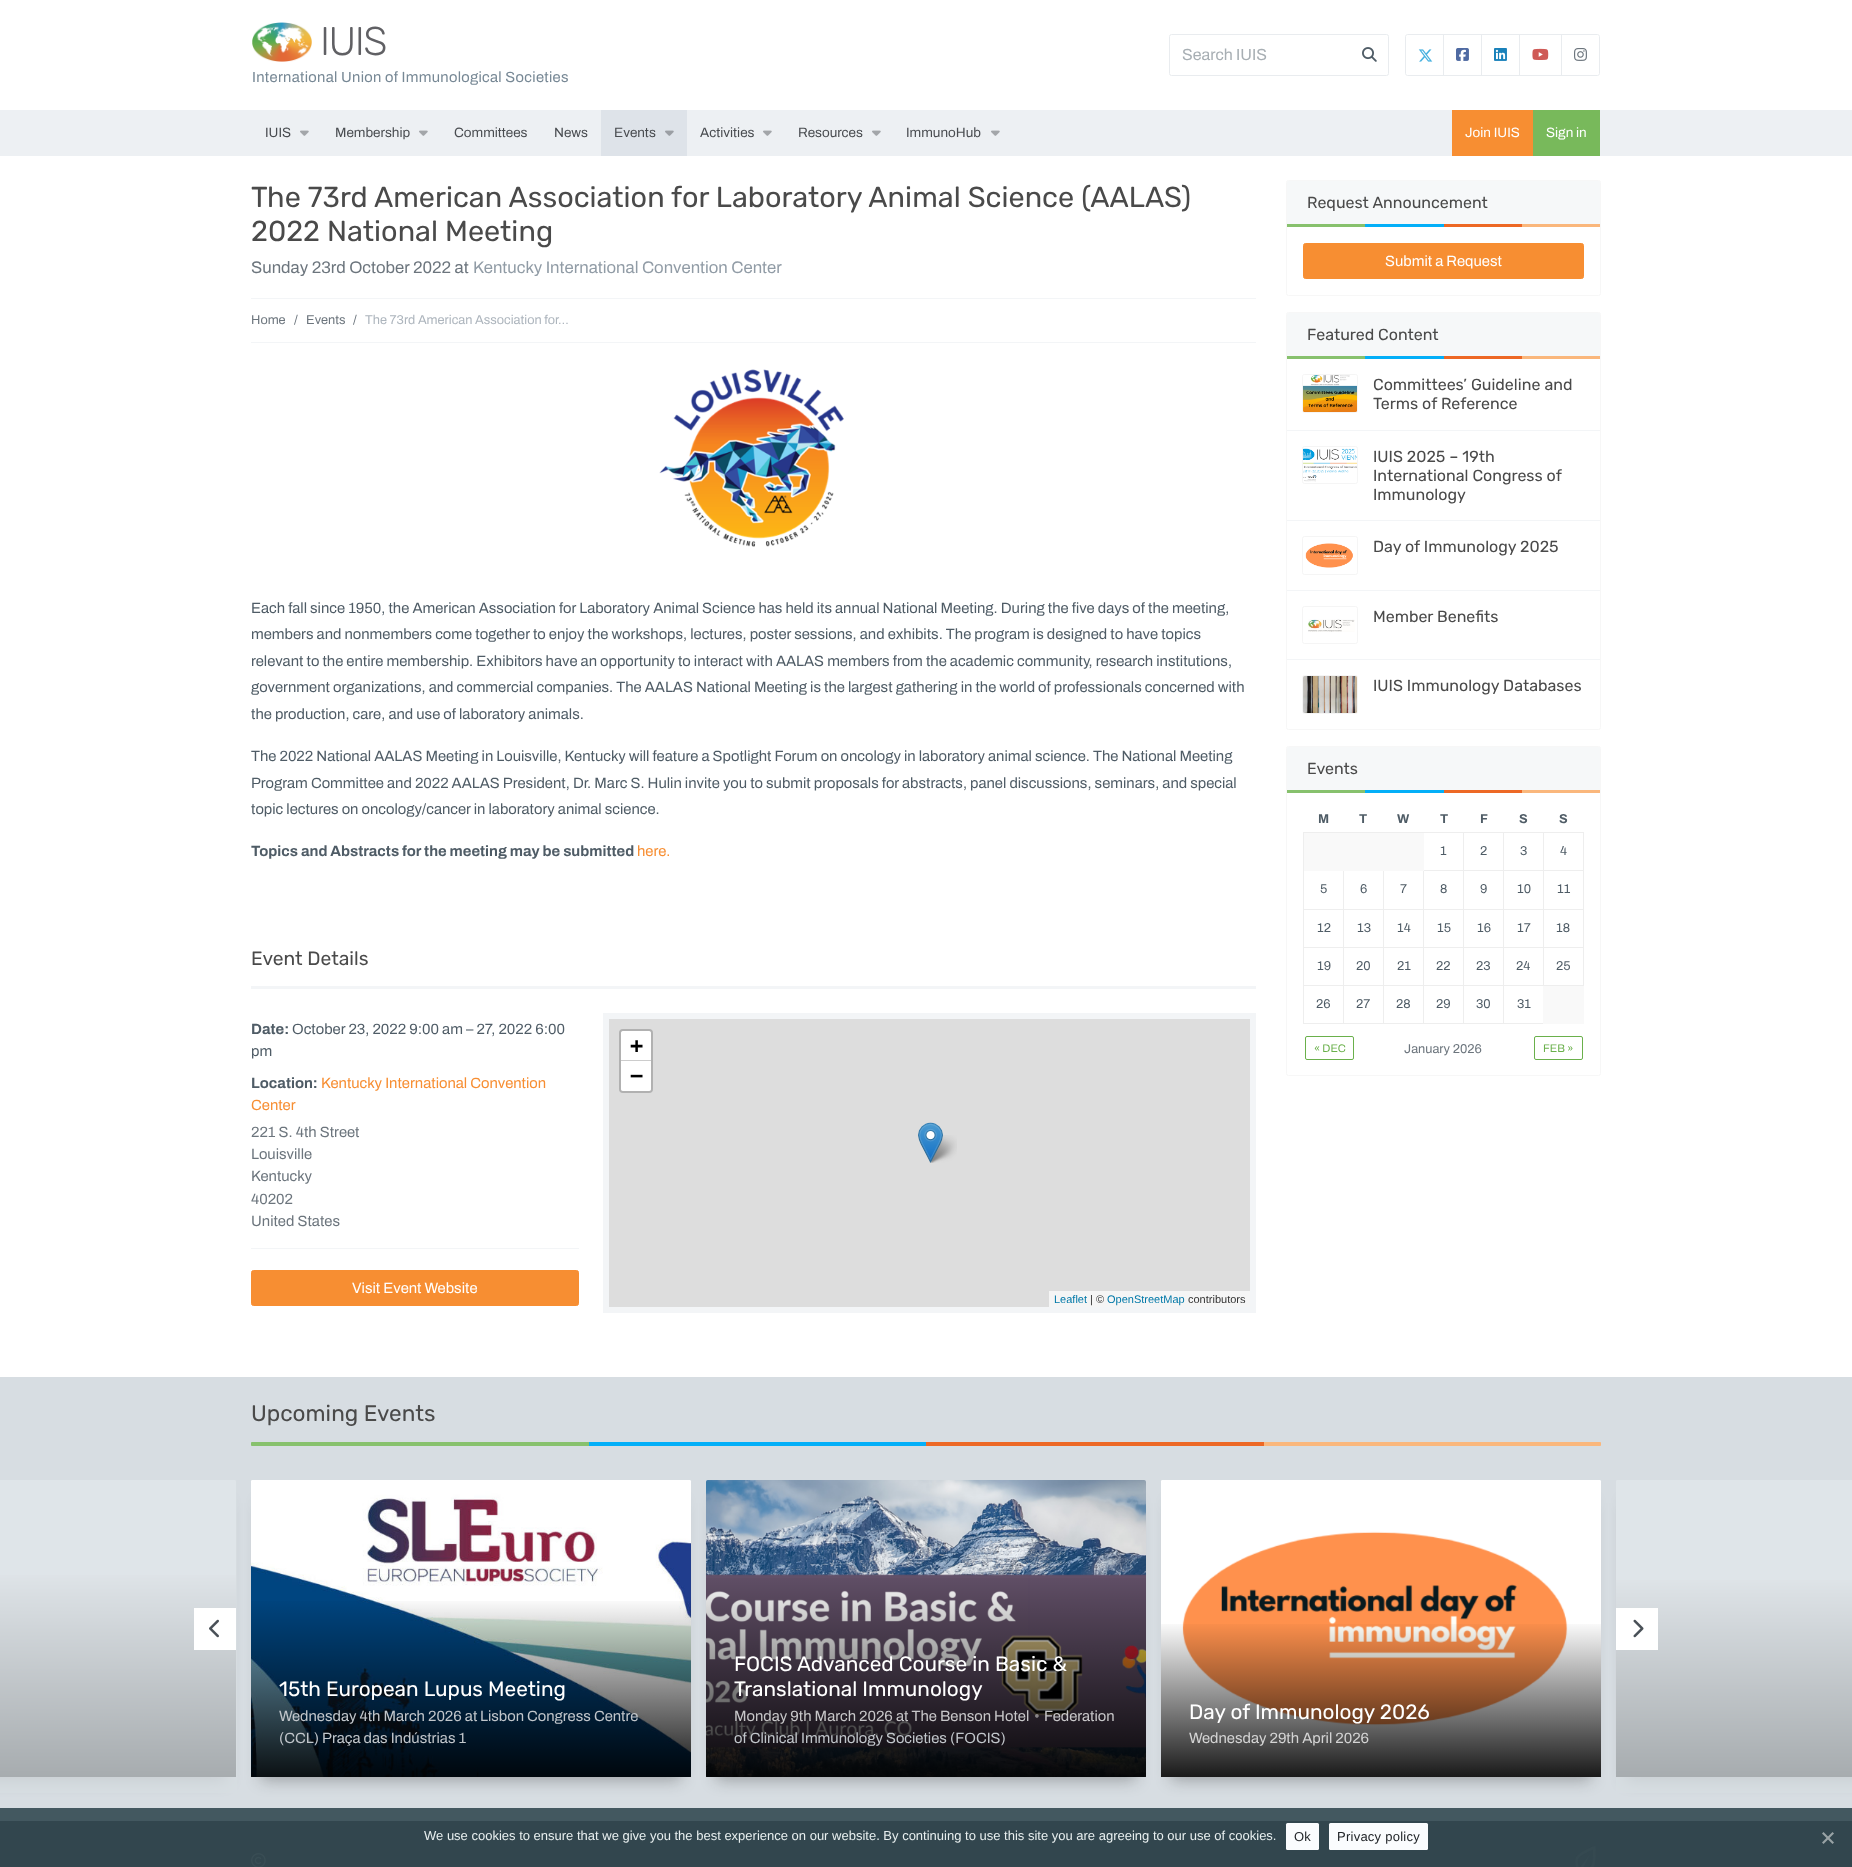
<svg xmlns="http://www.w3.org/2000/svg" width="1852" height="1867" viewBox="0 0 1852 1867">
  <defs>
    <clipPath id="clip1"><path d="M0 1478H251V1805H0ZM-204 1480H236V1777H-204Z" clip-rule="evenodd"/></clipPath>
    <linearGradient id="g1" gradientUnits="userSpaceOnUse" x1="16" y1="1570" x2="16" y2="1777"><stop offset="0" stop-color="rgb(0,0,0)" stop-opacity="0"/><stop offset="1" stop-color="rgb(0,0,0)" stop-opacity="0.9"/></linearGradient>
    <clipPath id="clip2"><path d="M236 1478H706V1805H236ZM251 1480H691V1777H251Z" clip-rule="evenodd"/></clipPath>
    <clipPath id="clip3"><path d="M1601 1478H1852V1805H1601ZM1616 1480H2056V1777H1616Z" clip-rule="evenodd"/></clipPath>
    <linearGradient id="g2" gradientUnits="userSpaceOnUse" x1="1836" y1="1575" x2="1836" y2="1777"><stop offset="0" stop-color="rgb(0,0,0)" stop-opacity="0"/><stop offset="1" stop-color="rgb(0,0,0)" stop-opacity="0.9"/></linearGradient>
    <linearGradient id="g3" gradientUnits="userSpaceOnUse" x1="471" y1="1597" x2="471" y2="1777"><stop offset="0" stop-color="rgb(0,0,0)" stop-opacity="0"/><stop offset="1" stop-color="rgb(0,0,0)" stop-opacity="0.9"/></linearGradient>
    <clipPath id="clip4"><path d="M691 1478H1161V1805H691ZM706 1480H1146V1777H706Z" clip-rule="evenodd"/></clipPath>
    <linearGradient id="g4" gradientUnits="userSpaceOnUse" x1="926" y1="1572" x2="926" y2="1777"><stop offset="0" stop-color="rgb(0,0,0)" stop-opacity="0"/><stop offset="1" stop-color="rgb(0,0,0)" stop-opacity="0.9"/></linearGradient>
    <clipPath id="clip5"><path d="M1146 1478H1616V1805H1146ZM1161 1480H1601V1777H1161Z" clip-rule="evenodd"/></clipPath>
    <linearGradient id="g5" gradientUnits="userSpaceOnUse" x1="1381" y1="1620" x2="1381" y2="1777"><stop offset="0" stop-color="rgb(0,0,0)" stop-opacity="0"/><stop offset="1" stop-color="rgb(0,0,0)" stop-opacity="0.9"/></linearGradient>
  </defs>
  <rect width="100%" height="100%" fill="rgb(255,255,255)"/>
  <image x="252" y="22" width="60" height="40" href="pic1.png"/>
  <text x="320" y="55" font-family="Rubik" font-size="40" font-weight="300" letter-spacing="-1.5" fill="rgb(96,96,100)">IUIS</text>
  <text x="252" y="82" font-family="Archivo" font-size="14.75" font-weight="600" letter-spacing="0.3" fill="rgb(119,136,149)">International Union of Immunological Societies</text>
  <rect x="1169.5" y="34.5" width="219" height="41" rx="2" fill="none" stroke="rgb(233,236,239)"/>
  <text x="1182" y="60" font-family="Archivo" font-size="16" font-weight="600" fill="rgb(167,174,179)">Search IUIS</text>
  <image x="1362" y="47" width="15" height="15" href="pic2.png"/>
  <path d="M1407.5 34.5H1443.5V75.5H1407.5C1406.5 75.5 1405.5 74.5 1405.5 73.5V36.5C1405.5 35.5 1406.5 34.5 1407.5 34.5Z" fill="none" stroke="rgb(233,236,239)"/>
  <image x="1418" y="49" width="15" height="13" href="pic3.png"/>
  <rect x="1443.5" y="34.5" width="38" height="41" fill="none" stroke="rgb(233,236,239)"/>
  <image x="1456" y="48" width="13" height="13" href="pic4.png"/>
  <rect x="1481.5" y="34.5" width="38" height="41" fill="none" stroke="rgb(233,236,239)"/>
  <image x="1494" y="48" width="13" height="13" href="pic5.png"/>
  <rect x="1519.5" y="34.5" width="42" height="41" fill="none" stroke="rgb(233,236,239)"/>
  <image x="1532" y="48" width="17" height="12" href="pic6.png"/>
  <path d="M1561.5 34.5H1597.5C1598.5 34.5 1599.5 35.5 1599.5 36.5V73.5C1599.5 74.5 1598.5 75.5 1597.5 75.5H1561.5Z" fill="none" stroke="rgb(233,236,239)"/>
  <image x="1574" y="48" width="13" height="13" href="pic7.png"/>
  <rect x="0" y="110" width="1852" height="46" fill="rgb(237,240,243)"/>
  <text x="265" y="137" font-family="Archivo" font-size="13.5" font-weight="600" fill="rgb(73,76,80)">IUIS</text>
  <image x="300" y="130" width="9" height="6" href="pic8.png"/>
  <text x="335" y="137" font-family="Archivo" font-size="13.5" font-weight="600" fill="rgb(73,76,80)">Membership</text>
  <image x="419" y="130" width="9" height="6" href="pic8.png"/>
  <g font-family="Archivo" font-size="13.5" font-weight="600" fill="rgb(73,76,80)">
    <text x="454" y="137">Committees</text>
    <text x="554" y="137">News</text>
  </g>
  <rect x="601" y="110" width="86" height="46" fill="rgb(222,227,233)"/>
  <text x="614" y="137" font-family="Archivo" font-size="13.5" font-weight="600" fill="rgb(73,76,80)">Events</text>
  <image x="665" y="130" width="9" height="6" href="pic9.png"/>
  <text x="700" y="137" font-family="Archivo" font-size="13.5" font-weight="600" fill="rgb(73,76,80)">Activities</text>
  <image x="763" y="130" width="9" height="6" href="pic8.png"/>
  <text x="798" y="137" font-family="Archivo" font-size="13.5" font-weight="600" fill="rgb(73,76,80)">Resources</text>
  <image x="872" y="130" width="9" height="6" href="pic8.png"/>
  <text x="906" y="137" font-family="Archivo" font-size="13.5" font-weight="600" fill="rgb(73,76,80)">ImmunoHub</text>
  <image x="991" y="130" width="9" height="6" href="pic8.png"/>
  <rect x="1452" y="110" width="81" height="46" fill="rgb(247,142,50)"/>
  <text x="1465" y="137" font-family="Archivo" font-size="13.5" font-weight="600" fill="rgb(255,255,255)">Join IUIS</text>
  <rect x="1533" y="110" width="67" height="46" fill="rgb(120,185,91)"/>
  <text x="1546" y="137" font-family="Archivo" font-size="13.5" font-weight="600" fill="rgb(255,255,255)">Sign in</text>
  <g font-family="'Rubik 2'" font-size="28.8" font-weight="300" fill="rgb(74,74,74)">
    <text>
      <tspan x="251" y="207">The 73rd American Association for Laboratory Animal Science (AALAS)</tspan>
      <tspan x="251" y="241">2022 National Meeting</tspan>
    </text>
  </g>
  <text x="251" y="273" font-family="Archivo" font-size="16.75" font-weight="600" fill="rgb(108,117,125)">Sunday 23rd October 2022 at</text>
  <text x="473" y="273" font-family="Archivo" font-size="16.75" font-weight="600" fill="rgb(145,156,166)">Kentucky International Convention Center</text>
  <rect x="251" y="298" width="1005" height="1" fill="rgb(243,245,247)"/>
  <rect x="251" y="342" width="1005" height="1" fill="rgb(243,245,247)"/>
  <g font-family="Archivo" font-size="12.75" font-weight="600" fill="rgb(108,117,125)">
    <text x="251" y="324">Home</text>
    <text x="294" y="324">/</text>
    <text x="306" y="324">Events</text>
    <text x="353" y="324">/</text>
  </g>
  <text x="365" y="324" font-family="Archivo" font-size="12.75" font-weight="600" fill="rgb(173,181,189)">The 73rd American Association for…</text>
  <image x="659" y="369" width="185" height="178" href="pic10.png"/>
  <g font-family="Archivo" font-size="14.8" font-weight="600" fill="rgb(79,92,102)">
    <text>
      <tspan x="251" y="613">Each fall since 1950, the American Association for Laboratory Animal Science has held its annual National Meeting. During the five days of the meeting,</tspan>
      <tspan x="251" y="639">members and nonmembers come together to enjoy the workshops, lectures, poster sessions, and exhibits. The program is designed to have topics</tspan>
      <tspan x="251" y="666">relevant to the entire membership. Exhibitors have an opportunity to interact with AALAS members from the academic community, research institutions,</tspan>
      <tspan x="251" y="692">government organizations, and commercial companies. The AALAS National Meeting is the largest gathering in the world of professionals concerned with</tspan>
      <tspan x="251" y="719">the production, care, and use of laboratory animals.</tspan>
    </text>
    <text>
      <tspan x="251" y="761">The 2022 National AALAS Meeting in Louisville, Kentucky will feature a Spotlight Forum on oncology in laboratory animal science. The National Meeting</tspan>
      <tspan x="251" y="788">Program Committee and 2022 AALAS President, Dr. Marc S. Hulin invite you to submit proposals for abstracts, panel discussions, seminars, and special</tspan>
      <tspan x="251" y="814">topic lectures on oncology/cancer in laboratory animal science.</tspan>
    </text>
  </g>
  <text x="251" y="856" font-family="'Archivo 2'" font-size="14.8" font-weight="600" fill="rgb(79,92,102)">Topics and Abstracts for the meeting may be submitted</text>
  <text x="637" y="856" font-family="Archivo" font-size="14.8" font-weight="600" fill="rgb(247,142,50)">here.</text>
  <rect x="251" y="986" width="1005" height="3" fill="rgb(243,245,247)"/>
  <text x="251" y="965" font-family="'Rubik 2'" font-size="19.25" font-weight="300" fill="rgb(74,74,74)">Event Details</text>
  <text x="251" y="1034" font-family="'Archivo 2'" font-size="14.8" font-weight="600" fill="rgb(79,92,102)">Date:</text>
  <g font-family="Archivo" font-size="14.8" font-weight="600" fill="rgb(79,92,102)">
    <text x="292" y="1034">October 23, 2022 9:00 am – 27, 2022 6:00</text>
    <text x="251" y="1056">pm</text>
  </g>
  <text x="251" y="1088" font-family="'Archivo 2'" font-size="14.8" font-weight="600" fill="rgb(79,92,102)">Location:</text>
  <g font-family="Archivo" font-size="14.8" font-weight="600" fill="rgb(247,142,50)">
    <text x="321" y="1088">Kentucky International Convention</text>
    <text x="251" y="1110">Center</text>
  </g>
  <g font-family="Archivo" font-size="14.8" font-weight="600" fill="rgb(108,117,125)">
    <text>
      <tspan x="251" y="1137">221 S. 4th Street</tspan>
      <tspan x="251" y="1159">Louisville</tspan>
      <tspan x="251" y="1181">Kentucky</tspan>
      <tspan x="251" y="1204">40202</tspan>
      <tspan x="251" y="1226">United States</tspan>
    </text>
  </g>
  <rect x="251" y="1248" width="328" height="1" fill="rgb(243,245,247)"/>
  <rect x="251.5" y="1270.5" width="327" height="35" rx="2" fill="rgb(247,142,50)" stroke="rgb(247,142,50)"/>
  <text x="352" y="1293" font-family="Archivo" font-size="14.8" font-weight="600" fill="rgb(255,255,255)">Visit Event Website</text>
  <rect x="606" y="1016" width="647" height="294" fill="rgb(221,221,221)" stroke="rgb(243,245,247)" stroke-width="6"/>
  <rect x="620" y="1030" width="32" height="62" rx="3" fill="none" stroke="rgb(177,177,177)" stroke-width="2"/>
  <path d="M623 1031H649C650 1031 651 1032 651 1033V1061H621V1033C621 1032 622 1031 623 1031Z" fill="rgb(255,255,255)"/>
  <rect x="621" y="1060" width="30" height="1" fill="rgb(204,204,204)"/>
  <text x="630" y="1053" font-family="DejaVu Sans Mono" font-size="22" font-weight="bold" fill="rgb(0,0,0)">+</text>
  <path d="M621 1061H651V1089C651 1090 650 1091 649 1091H623C622 1091 621 1090 621 1089Z" fill="rgb(255,255,255)"/>
  <text x="630" y="1083" font-family="DejaVu Sans Mono" font-size="22" font-weight="bold" fill="rgb(0,0,0)">−</text>
  <rect x="1049" y="1291" width="201" height="16" fill="rgb(245,245,245)"/>
  <text x="1054" y="1303" font-family="Liberation Sans" font-size="11" fill="rgb(0,120,168)">Leaflet</text>
  <text x="1090" y="1303" font-family="Liberation Sans" font-size="11" fill="rgb(51,51,51)">| ©</text>
  <text x="1107" y="1303" font-family="Liberation Sans" font-size="11" fill="rgb(0,120,168)">OpenStreetMap</text>
  <text x="1188" y="1303" font-family="Liberation Sans" font-size="11" fill="rgb(51,51,51)">contributors</text>
  <image x="928" y="1135" width="29" height="28" href="pic12.png"/>
  <image x="918" y="1122" width="25" height="41" href="pic11.png"/>
  <rect x="1286.5" y="180.5" width="314" height="115" rx="2" fill="none" stroke="rgb(247,247,247)"/>
  <path d="M1288.5 181H1598.5C1599.5 181 1600 181.5 1600 182.5V224H1287V182.5C1287 181.5 1287.5 181 1288.5 181Z" fill="rgb(246,248,249)"/>
  <text x="1307" y="208" font-family="'Rubik 2'" font-size="16" font-weight="300" fill="rgb(74,74,74)">Request Announcement</text>
  <rect x="1287" y="224" width="78" height="3" fill="rgb(135,193,109)"/>
  <rect x="1365" y="224" width="79" height="3" fill="rgb(3,175,248)"/>
  <rect x="1444" y="224" width="78" height="3" fill="rgb(237,104,37)"/>
  <rect x="1522" y="224" width="78" height="3" fill="rgb(250,183,124)"/>
  <rect x="1303.5" y="243.5" width="280" height="35" rx="2" fill="rgb(247,142,50)" stroke="rgb(247,142,50)"/>
  <text x="1385" y="266" font-family="Archivo" font-size="14.8" font-weight="600" fill="rgb(255,255,255)">Submit a Request</text>
  <rect x="1286.5" y="312.5" width="314" height="417" rx="2" fill="none" stroke="rgb(247,247,247)"/>
  <path d="M1288.5 313H1598.5C1599.5 313 1600 313.5 1600 314.5V356H1287V314.5C1287 313.5 1287.5 313 1288.5 313Z" fill="rgb(246,248,249)"/>
  <text x="1307" y="340" font-family="'Rubik 2'" font-size="16" font-weight="300" fill="rgb(74,74,74)">Featured Content</text>
  <rect x="1287" y="356" width="78" height="3" fill="rgb(135,193,109)"/>
  <rect x="1365" y="356" width="79" height="3" fill="rgb(3,175,248)"/>
  <rect x="1444" y="356" width="78" height="3" fill="rgb(237,104,37)"/>
  <rect x="1522" y="356" width="78" height="3" fill="rgb(250,183,124)"/>
  <rect x="1287" y="430" width="313" height="1" fill="rgb(243,245,247)"/>
  <rect x="1302.5" y="374.5" width="55" height="38" rx="2" fill="none" stroke="rgb(245,245,245)"/>
  <image x="1303" y="375" width="54" height="37" href="pic13.png"/>
  <g font-family="'Rubik 2'" font-size="16" font-weight="300" fill="rgb(74,74,74)">
    <text>
      <tspan x="1373" y="390">Committees’ Guideline and</tspan>
      <tspan x="1373" y="409">Terms of Reference</tspan>
    </text>
  </g>
  <rect x="1287" y="520" width="313" height="1" fill="rgb(243,245,247)"/>
  <rect x="1302.5" y="446.5" width="55" height="37" rx="2" fill="none" stroke="rgb(245,245,245)"/>
  <image x="1303" y="448" width="54" height="34" href="pic14.png"/>
  <g font-family="'Rubik 2'" font-size="16" font-weight="300" fill="rgb(74,74,74)">
    <text>
      <tspan x="1373" y="462">IUIS 2025 – 19th</tspan>
      <tspan x="1373" y="481">International Congress of</tspan>
      <tspan x="1373" y="500">Immunology</tspan>
    </text>
  </g>
  <rect x="1287" y="590" width="313" height="1" fill="rgb(243,245,247)"/>
  <rect x="1302.5" y="536.5" width="55" height="38" rx="2" fill="none" stroke="rgb(245,245,245)"/>
  <image x="1305" y="543" width="48" height="25" href="pic15.png"/>
  <text x="1373" y="552" font-family="'Rubik 2'" font-size="16" font-weight="300" fill="rgb(74,74,74)">Day of Immunology 2025</text>
  <rect x="1287" y="659" width="313" height="1" fill="rgb(243,245,247)"/>
  <rect x="1302.5" y="606.5" width="55" height="37" rx="2" fill="none" stroke="rgb(245,245,245)"/>
  <image x="1308" y="619" width="47" height="13" href="pic16.png"/>
  <text x="1373" y="622" font-family="'Rubik 2'" font-size="16" font-weight="300" fill="rgb(74,74,74)">Member Benefits</text>
  <rect x="1302.5" y="675.5" width="55" height="38" rx="2" fill="none" stroke="rgb(245,245,245)"/>
  <image x="1303" y="676" width="54" height="37" href="pic17.png"/>
  <text x="1373" y="691" font-family="'Rubik 2'" font-size="16" font-weight="300" fill="rgb(74,74,74)">IUIS Immunology Databases</text>
  <rect x="1286.5" y="746.5" width="314" height="329" rx="2" fill="none" stroke="rgb(247,247,247)"/>
  <path d="M1288.5 747H1598.5C1599.5 747 1600 747.5 1600 748.5V790H1287V748.5C1287 747.5 1287.5 747 1288.5 747Z" fill="rgb(246,248,249)"/>
  <text x="1307" y="774" font-family="'Rubik 2'" font-size="16" font-weight="300" fill="rgb(74,74,74)">Events</text>
  <rect x="1287" y="790" width="78" height="3" fill="rgb(135,193,109)"/>
  <rect x="1365" y="790" width="79" height="3" fill="rgb(3,175,248)"/>
  <rect x="1444" y="790" width="78" height="3" fill="rgb(237,104,37)"/>
  <rect x="1522" y="790" width="78" height="3" fill="rgb(250,183,124)"/>
  <g font-family="'Archivo 2'" font-size="12.75" font-weight="600" fill="rgb(79,92,102)">
    <text x="1318" y="823">M</text>
    <text x="1359" y="823">T</text>
    <text x="1397" y="823">W</text>
    <text x="1440" y="823">T</text>
    <text x="1480" y="823">F</text>
    <text x="1519" y="823">S</text>
    <text x="1559" y="823">S</text>
  </g>
  <rect x="1543" y="832" width="41" height="1" fill="rgb(238,238,238)"/>
  <rect x="1543" y="870" width="41" height="1" fill="rgb(238,238,238)"/>
  <rect x="1543" y="909" width="41" height="1" fill="rgb(238,238,238)"/>
  <rect x="1543" y="947" width="41" height="1" fill="rgb(238,238,238)"/>
  <rect x="1503" y="985" width="81" height="1" fill="rgb(238,238,238)"/>
  <rect x="1543" y="947" width="1" height="39" fill="rgb(238,238,238)"/>
  <rect x="1503" y="947" width="41" height="1" fill="rgb(238,238,238)"/>
  <rect x="1543" y="909" width="1" height="39" fill="rgb(238,238,238)"/>
  <rect x="1503" y="909" width="41" height="1" fill="rgb(238,238,238)"/>
  <rect x="1543" y="870" width="1" height="40" fill="rgb(238,238,238)"/>
  <rect x="1503" y="870" width="41" height="1" fill="rgb(238,238,238)"/>
  <rect x="1543" y="832" width="1" height="39" fill="rgb(238,238,238)"/>
  <rect x="1503" y="832" width="41" height="1" fill="rgb(238,238,238)"/>
  <rect x="1503" y="1023" width="41" height="1" fill="rgb(238,238,238)"/>
  <rect x="1503" y="985" width="1" height="39" fill="rgb(238,238,238)"/>
  <rect x="1463" y="985" width="41" height="1" fill="rgb(238,238,238)"/>
  <rect x="1503" y="947" width="1" height="39" fill="rgb(238,238,238)"/>
  <rect x="1463" y="947" width="41" height="1" fill="rgb(238,238,238)"/>
  <rect x="1503" y="909" width="1" height="39" fill="rgb(238,238,238)"/>
  <rect x="1463" y="909" width="41" height="1" fill="rgb(238,238,238)"/>
  <rect x="1503" y="870" width="1" height="40" fill="rgb(238,238,238)"/>
  <rect x="1463" y="870" width="41" height="1" fill="rgb(238,238,238)"/>
  <rect x="1503" y="832" width="1" height="39" fill="rgb(238,238,238)"/>
  <rect x="1463" y="832" width="41" height="1" fill="rgb(238,238,238)"/>
  <rect x="1463" y="1023" width="41" height="1" fill="rgb(238,238,238)"/>
  <rect x="1463" y="985" width="1" height="39" fill="rgb(238,238,238)"/>
  <rect x="1423" y="985" width="41" height="1" fill="rgb(238,238,238)"/>
  <rect x="1463" y="947" width="1" height="39" fill="rgb(238,238,238)"/>
  <rect x="1423" y="947" width="41" height="1" fill="rgb(238,238,238)"/>
  <rect x="1463" y="909" width="1" height="39" fill="rgb(238,238,238)"/>
  <rect x="1423" y="909" width="41" height="1" fill="rgb(238,238,238)"/>
  <rect x="1463" y="870" width="1" height="40" fill="rgb(238,238,238)"/>
  <rect x="1423" y="870" width="41" height="1" fill="rgb(238,238,238)"/>
  <rect x="1463" y="832" width="1" height="39" fill="rgb(238,238,238)"/>
  <rect x="1303" y="832" width="161" height="1" fill="rgb(238,238,238)"/>
  <rect x="1423" y="1023" width="41" height="1" fill="rgb(238,238,238)"/>
  <rect x="1423" y="985" width="1" height="39" fill="rgb(238,238,238)"/>
  <rect x="1383" y="985" width="41" height="1" fill="rgb(238,238,238)"/>
  <rect x="1423" y="947" width="1" height="39" fill="rgb(238,238,238)"/>
  <rect x="1383" y="947" width="41" height="1" fill="rgb(238,238,238)"/>
  <rect x="1423" y="909" width="1" height="39" fill="rgb(238,238,238)"/>
  <rect x="1383" y="909" width="41" height="1" fill="rgb(238,238,238)"/>
  <rect x="1383" y="1023" width="41" height="1" fill="rgb(238,238,238)"/>
  <rect x="1383" y="985" width="1" height="39" fill="rgb(238,238,238)"/>
  <rect x="1343" y="985" width="41" height="1" fill="rgb(238,238,238)"/>
  <rect x="1383" y="947" width="1" height="39" fill="rgb(238,238,238)"/>
  <rect x="1343" y="947" width="41" height="1" fill="rgb(238,238,238)"/>
  <rect x="1383" y="909" width="1" height="39" fill="rgb(238,238,238)"/>
  <rect x="1343" y="909" width="41" height="1" fill="rgb(238,238,238)"/>
  <rect x="1343" y="1023" width="41" height="1" fill="rgb(238,238,238)"/>
  <rect x="1343" y="985" width="1" height="39" fill="rgb(238,238,238)"/>
  <rect x="1303" y="985" width="41" height="1" fill="rgb(238,238,238)"/>
  <rect x="1343" y="947" width="1" height="39" fill="rgb(238,238,238)"/>
  <rect x="1303" y="947" width="41" height="1" fill="rgb(238,238,238)"/>
  <rect x="1343" y="909" width="1" height="39" fill="rgb(238,238,238)"/>
  <rect x="1303" y="909" width="41" height="1" fill="rgb(238,238,238)"/>
  <rect x="1303" y="1023" width="41" height="1" fill="rgb(238,238,238)"/>
  <rect x="1303" y="985" width="1" height="39" fill="rgb(238,238,238)"/>
  <rect x="1303" y="947" width="1" height="39" fill="rgb(238,238,238)"/>
  <rect x="1303" y="870" width="1" height="78" fill="rgb(238,238,238)"/>
  <rect x="1303" y="832" width="1" height="39" fill="rgb(238,238,238)"/>
  <rect x="1343" y="870" width="1" height="40" fill="rgb(238,238,238)"/>
  <rect x="1383" y="870" width="1" height="40" fill="rgb(238,238,238)"/>
  <rect x="1423" y="870" width="1" height="40" fill="rgb(238,238,238)"/>
  <rect x="1304" y="833" width="120" height="38" fill="rgb(249,249,249)"/>
  <g font-family="Archivo" font-size="12.75" font-weight="600" fill="rgb(79,92,102)">
    <text x="1440" y="855">1</text>
    <text x="1480" y="855">2</text>
    <text x="1520" y="855">3</text>
  </g>
  <rect x="1583" y="947" width="1" height="39" fill="rgb(238,238,238)"/>
  <rect x="1583" y="909" width="1" height="39" fill="rgb(238,238,238)"/>
  <rect x="1583" y="870" width="1" height="40" fill="rgb(238,238,238)"/>
  <rect x="1583" y="832" width="1" height="39" fill="rgb(238,238,238)"/>
  <g font-family="Archivo" font-size="12.75" font-weight="600" fill="rgb(79,92,102)">
    <text x="1560" y="855">4</text>
    <text x="1320" y="893">5</text>
    <text x="1360" y="893">6</text>
    <text x="1400" y="893">7</text>
    <text x="1440" y="893">8</text>
    <text x="1480" y="893">9</text>
    <text x="1517" y="893">10</text>
    <text x="1557" y="893">11</text>
    <text x="1317" y="932">12</text>
    <text x="1357" y="932">13</text>
    <text x="1397" y="932">14</text>
    <text x="1437" y="932">15</text>
    <text x="1477" y="932">16</text>
    <text x="1517" y="932">17</text>
    <text x="1556" y="932">18</text>
    <text x="1317" y="970">19</text>
    <text x="1356" y="970">20</text>
    <text x="1397" y="970">21</text>
    <text x="1436" y="970">22</text>
    <text x="1476" y="970">23</text>
    <text x="1516" y="970">24</text>
    <text x="1556" y="970">25</text>
    <text x="1316" y="1008">26</text>
    <text x="1356" y="1008">27</text>
    <text x="1396" y="1008">28</text>
    <text x="1436" y="1008">29</text>
    <text x="1476" y="1008">30</text>
  </g>
  <rect x="1543" y="986" width="41" height="38" fill="rgb(249,249,249)"/>
  <text x="1517" y="1008" font-family="Archivo" font-size="12.75" font-weight="600" fill="rgb(79,92,102)">31</text>
  <rect x="1305.5" y="1036.5" width="48" height="23" rx="1.5" fill="none" stroke="rgb(106,176,75)"/>
  <text x="1314" y="1052" font-family="Archivo" font-size="11" font-weight="600" fill="rgb(106,176,75)">« DEC</text>
  <rect x="1534.5" y="1036.5" width="48" height="23" rx="1.5" fill="none" stroke="rgb(106,176,75)"/>
  <text x="1543" y="1052" font-family="Archivo" font-size="11" font-weight="600" fill="rgb(106,176,75)">FEB »</text>
  <text x="1404" y="1053" font-family="Archivo" font-size="12.75" font-weight="600" fill="rgb(108,117,125)">January 2026</text>
  <rect x="0" y="1377" width="1852" height="431" fill="rgb(215,221,226)"/>
  <rect x="0" y="1808" width="1852" height="13" fill="rgb(67,88,96)"/>
  <text x="251" y="1421" font-family="'Rubik 2'" font-size="22.5" font-weight="300" fill="rgb(74,74,74)">Upcoming Events</text>
  <path d="M252 1442H589V1446H252C251.5 1446 251 1445.5 251 1445V1443C251 1442.5 251.5 1442 252 1442Z" fill="rgb(135,193,109)"/>
  <rect x="589" y="1442" width="337" height="4" fill="rgb(3,175,248)"/>
  <rect x="926" y="1442" width="338" height="4" fill="rgb(237,104,37)"/>
  <path d="M1264 1442H1600C1600.5 1442 1601 1442.5 1601 1443V1445C1601 1445.5 1600.5 1446 1600 1446H1264Z" fill="rgb(250,183,124)"/>
  <path d="M0 1480H234.5C235.5 1480 236 1480.5 236 1481.5V1775.5C236 1776.5 235.5 1777 234.5 1777H0Z" fill="rgb(248,249,253)"/>
  <g clip-path="url(#clip1)">
    <rect x="-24" y="1503" width="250" height="277" fill="rgba(24,24,24,0.32)" filter="blur(8px)"/>
  </g>
  <rect x="0" y="1575" width="236" height="202" fill="url(#g1)"/>
  <rect x="251" y="1480" width="440" height="297" rx="1.5" fill="rgb(248,249,253)"/>
  <image x="251" y="1480" width="440" height="297" href="pic20.png"/>
  <g clip-path="url(#clip2)">
    <rect x="261" y="1503" width="420" height="277" fill="rgba(24,24,24,0.32)" filter="blur(8px)"/>
  </g>
  <rect x="0" y="1480" width="237" height="313" fill="rgba(215,221,226,0.75)"/>
  <path d="M1617.5 1480H1852V1777H1617.5C1616.5 1777 1616 1776.5 1616 1775.5V1481.5C1616 1480.5 1616.5 1480 1617.5 1480Z" fill="rgb(248,249,253)"/>
  <g clip-path="url(#clip3)">
    <rect x="1626" y="1503" width="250" height="277" fill="rgba(24,24,24,0.32)" filter="blur(8px)"/>
  </g>
  <rect x="1616" y="1580" width="236" height="197" fill="url(#g2)"/>
  <rect x="1616" y="1480" width="236" height="313" fill="rgba(215,221,226,0.75)"/>
  <rect x="194" y="1608" width="42" height="42" fill="rgb(255,255,255)"/>
  <image x="209" y="1619" width="10" height="19" href="pic18.png"/>
  <rect x="1616" y="1608" width="42" height="42" fill="rgb(255,255,255)"/>
  <image x="1633" y="1619" width="11" height="19" href="pic19.png"/>
  <rect x="251" y="1601" width="440" height="176" fill="url(#g3)"/>
  <text x="279" y="1696" font-family="'Rubik 2'" font-size="20.75" font-weight="300" fill="rgb(255,255,255)">15th European Lupus Meeting</text>
  <g font-family="Archivo" font-size="14.8" font-weight="600" fill="rgb(193,198,203)">
    <text x="279" y="1721">Wednesday 4th March 2026 at</text>
    <text x="480" y="1721">Lisbon Congress Centre</text>
    <text x="279" y="1743">(CCL) Praça das Indústrias 1</text>
  </g>
  <rect x="706" y="1480" width="440" height="297" rx="1.5" fill="rgb(248,249,253)"/>
  <image x="706" y="1480" width="440" height="297" href="pic21.png"/>
  <g clip-path="url(#clip4)">
    <rect x="716" y="1503" width="420" height="277" fill="rgba(24,24,24,0.32)" filter="blur(8px)"/>
  </g>
  <rect x="706" y="1578" width="440" height="199" fill="url(#g4)"/>
  <g font-family="'Rubik 2'" font-size="20.75" font-weight="300" fill="rgb(255,255,255)">
    <text>
      <tspan x="734" y="1671">FOCIS Advanced Course in Basic &amp;</tspan>
      <tspan x="734" y="1696">Translational Immunology</tspan>
    </text>
  </g>
  <text x="734" y="1721" font-family="Archivo" font-size="14.8" font-weight="600" fill="rgb(200,199,201)">Monday 9th March 2026 at The Benson Hotel</text>
  <text x="1034" y="1721" font-family="Archivo" font-size="14.8" font-weight="600" fill="rgb(138,134,136)">•</text>
  <text x="1044" y="1721" font-family="Archivo" font-size="14.8" font-weight="600" fill="rgb(200,199,201)">Federation</text>
  <text x="734" y="1743" font-family="Archivo" font-size="14.8" font-weight="600" fill="rgb(193,198,203)">of Clinical Immunology Societies (FOCIS)</text>
  <rect x="1161" y="1480" width="440" height="297" rx="1.5" fill="rgb(248,249,253)"/>
  <image x="1161" y="1480" width="440" height="297" href="pic22.png"/>
  <g clip-path="url(#clip5)">
    <rect x="1171" y="1503" width="420" height="277" fill="rgba(24,24,24,0.32)" filter="blur(8px)"/>
  </g>
  <rect x="1161" y="1624" width="440" height="153" fill="url(#g5)"/>
  <text x="1189" y="1719" font-family="'Rubik 2'" font-size="20.75" font-weight="300" fill="rgb(255,255,255)">Day of Immunology 2026</text>
  <text x="1189" y="1743" font-family="Archivo" font-size="14.8" font-weight="600" fill="rgb(212,212,212)">Wednesday 29th April 2026</text>
  <rect x="0" y="1821" width="1852" height="46" fill="rgb(50,70,78)"/>
  <image x="251" y="1853" width="15" height="14" href="pic23.png"/>
  <image x="1575" y="1846" width="21" height="21" href="pic24.png"/>
  <text x="424" y="1840" font-family="Liberation Sans" font-size="13" fill="rgb(232,239,239)">We use cookies to ensure that we give you the best experience on our website. By continuing to use this site you are agreeing to our use of cookies.</text>
  <rect x="1286" y="1823" width="33" height="27" rx="1.5" fill="rgb(250,252,254)"/>
  <text x="1294" y="1841" font-family="Liberation Sans" font-size="13" letter-spacing="0.25" fill="rgb(33,37,41)">Ok</text>
  <rect x="1329" y="1823" width="99" height="27" rx="1.5" fill="rgb(250,252,254)"/>
  <text x="1337" y="1841" font-family="Liberation Sans" font-size="13" letter-spacing="0.25" fill="rgb(33,37,41)">Privacy policy</text>
  <path d="M1832.5 1832L1834 1833.5L1823.5 1844L1822 1842.5Z" fill="rgb(153,163,166)"/>
  <path d="M1822 1833.5L1823.5 1832L1834 1842.5L1832.5 1844Z" fill="rgb(153,163,166)"/>
</svg>
